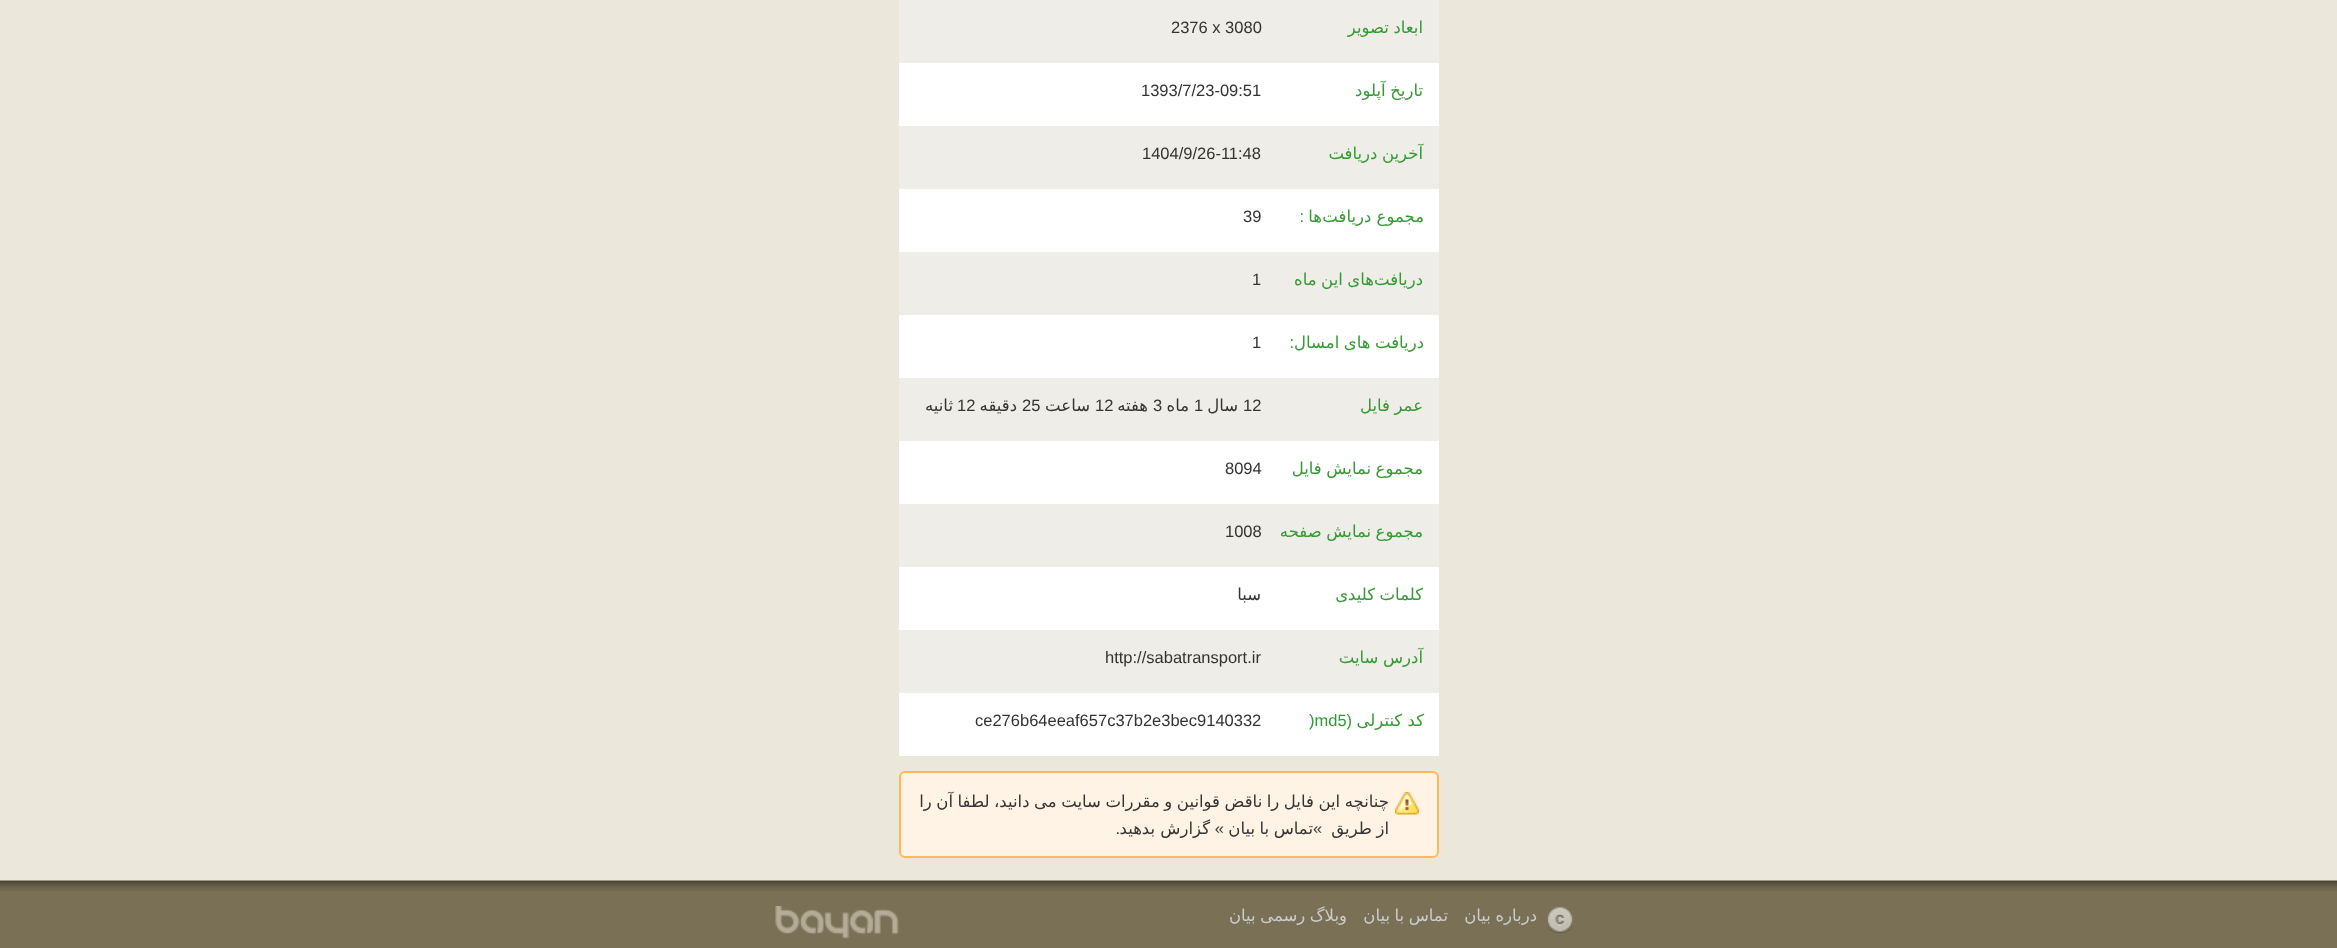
<svg xmlns="http://www.w3.org/2000/svg" width="2337" height="948" viewBox="0 0 2337 948">
  <rect width="100%" height="100%" fill="rgb(235,231,218)"/>
  <rect x="899" y="63" width="540" height="693" fill="rgb(255,255,255)"/>
  <rect x="899" y="0" width="540" height="63" fill="rgb(238,237,231)"/>
  <text x="1423" y="33" word-spacing="-0.7" font-family="DejaVu Sans" font-size="16.5" direction="rtl" fill="rgb(51,153,51)">ابعاد تصویر</text>
  <text x="1171" y="33" font-family="Liberation Sans" font-size="16.5" fill="rgb(51,51,51)">2376 x 3080</text>
  <text x="1423" y="96" word-spacing="-0.7" font-family="DejaVu Sans" font-size="16.5" direction="rtl" fill="rgb(51,153,51)">تاریخ آپلود</text>
  <text x="1141" y="96" font-family="Liberation Sans" font-size="16.5" fill="rgb(51,51,51)">1393/7/23-09:51</text>
  <rect x="899" y="126" width="540" height="63" fill="rgb(238,237,231)"/>
  <text x="1423" y="159" word-spacing="-0.7" font-family="DejaVu Sans" font-size="16.5" direction="rtl" fill="rgb(51,153,51)">آخرین دریافت</text>
  <text x="1142" y="159" font-family="Liberation Sans" font-size="16.5" fill="rgb(51,51,51)">1404/9/26-11:48</text>
  <g font-family="DejaVu Sans" font-size="16.5" direction="rtl" fill="rgb(51,153,51)">
    <text x="1424" y="222">مجموع دریافت</text>
    <text x="1322" y="222">ها</text>
  </g>
  <text x="1304" y="222" font-family="Liberation Sans" font-size="16.5" direction="rtl" fill="rgb(51,153,51)">:</text>
  <text x="1243" y="222" font-family="Liberation Sans" font-size="16.5" fill="rgb(51,51,51)">39</text>
  <rect x="899" y="252" width="540" height="63" fill="rgb(238,237,231)"/>
  <g font-family="DejaVu Sans" font-size="16.5" direction="rtl" fill="rgb(51,153,51)">
    <text x="1423" y="285">دریافت</text>
    <text x="1374" y="285" word-spacing="-0.7">های این ماه</text>
  </g>
  <text x="1252" y="285" font-family="Liberation Sans" font-size="16.5" fill="rgb(51,51,51)">1</text>
  <text x="1424" y="348" word-spacing="-0.7" font-family="DejaVu Sans" font-size="16.5" direction="rtl" fill="rgb(51,153,51)">دریافت های امسال</text>
  <text x="1294" y="348" font-family="Liberation Sans" font-size="16.5" direction="rtl" fill="rgb(51,153,51)">:</text>
  <text x="1252" y="348" font-family="Liberation Sans" font-size="16.5" fill="rgb(51,51,51)">1</text>
  <rect x="899" y="378" width="540" height="63" fill="rgb(238,237,231)"/>
  <text x="1423" y="411" word-spacing="-0.7" font-family="DejaVu Sans" font-size="16.5" direction="rtl" fill="rgb(51,153,51)">عمر فایل</text>
  <text x="1243" y="411" font-family="Liberation Sans" font-size="16.5" fill="rgb(51,51,51)">12</text>
  <text x="1238" y="411" font-family="DejaVu Sans" font-size="16.5" direction="rtl" fill="rgb(51,51,51)">سال</text>
  <text x="1194" y="411" font-family="Liberation Sans" font-size="16.5" fill="rgb(51,51,51)">1</text>
  <text x="1189" y="411" font-family="DejaVu Sans" font-size="16.5" direction="rtl" fill="rgb(51,51,51)">ماه</text>
  <text x="1153" y="411" font-family="Liberation Sans" font-size="16.5" fill="rgb(51,51,51)">3</text>
  <text x="1148" y="411" font-family="DejaVu Sans" font-size="16.5" direction="rtl" fill="rgb(51,51,51)">هفته</text>
  <text x="1095" y="411" font-family="Liberation Sans" font-size="16.5" fill="rgb(51,51,51)">12</text>
  <text x="1090" y="411" font-family="DejaVu Sans" font-size="16.5" direction="rtl" fill="rgb(51,51,51)">ساعت</text>
  <text x="1022" y="411" font-family="Liberation Sans" font-size="16.5" fill="rgb(51,51,51)">25</text>
  <text x="1017" y="411" font-family="DejaVu Sans" font-size="16.5" direction="rtl" fill="rgb(51,51,51)">دقیقه</text>
  <text x="957" y="411" font-family="Liberation Sans" font-size="16.5" fill="rgb(51,51,51)">12</text>
  <text x="953" y="411" font-family="DejaVu Sans" font-size="16.5" direction="rtl" fill="rgb(51,51,51)">ثانیه</text>
  <text x="1423" y="474" word-spacing="-0.7" font-family="DejaVu Sans" font-size="16.5" direction="rtl" fill="rgb(51,153,51)">مجموع نمایش فایل</text>
  <text x="1225" y="474" font-family="Liberation Sans" font-size="16.5" fill="rgb(51,51,51)">8094</text>
  <rect x="899" y="504" width="540" height="63" fill="rgb(238,237,231)"/>
  <text x="1423" y="537" word-spacing="-0.7" font-family="DejaVu Sans" font-size="16.5" direction="rtl" fill="rgb(51,153,51)">مجموع نمایش صفحه</text>
  <text x="1225" y="537" font-family="Liberation Sans" font-size="16.5" fill="rgb(51,51,51)">1008</text>
  <text x="1423" y="600" word-spacing="-0.7" font-family="DejaVu Sans" font-size="16.5" direction="rtl" fill="rgb(51,153,51)">کلمات کلیدی</text>
  <text x="1261" y="600" font-family="DejaVu Sans" font-size="16.5" direction="rtl" fill="rgb(51,51,51)">سبا</text>
  <rect x="899" y="630" width="540" height="63" fill="rgb(238,237,231)"/>
  <text x="1423" y="663" word-spacing="-0.7" font-family="DejaVu Sans" font-size="16.5" direction="rtl" fill="rgb(51,153,51)">آدرس سایت</text>
  <text x="1105" y="663" font-family="Liberation Sans" font-size="16.5" fill="rgb(51,51,51)">http://sabatransport.ir</text>
  <text x="1424" y="726" font-family="DejaVu Sans" font-size="16.5" direction="rtl" fill="rgb(51,153,51)">کد کنترلی</text>
  <text x="1352" y="726" font-family="Liberation Sans" font-size="16.5" direction="rtl" fill="rgb(51,153,51)">(</text>
  <text x="1309" y="726" font-family="Liberation Sans" font-size="16.5" fill="rgb(51,153,51)">)md5</text>
  <text x="975" y="726" font-family="Liberation Sans" font-size="16.5" fill="rgb(51,51,51)">ce276b64eeaf657c37b2e3bec9140332</text>
  <rect x="899" y="771" width="540" height="87" rx="6" fill="rgb(255,243,229)"/>
  <image x="1395" y="792" width="24" height="23" href="pic1.png"/>
  <rect x="900" y="772" width="538" height="85" rx="5" fill="none" stroke="rgb(255,184,91)" stroke-width="2"/>
  <g font-family="DejaVu Sans" font-size="16.5" direction="rtl" fill="rgb(51,51,51)">
    <text>
      <tspan x="1389" y="807" word-spacing="-0.7">چنانچه اين فايل را ناقض قوانين و مقررات سايت می دانيد، لطفا آن را</tspan>
      <tspan x="1389" y="834" word-spacing="-0.7">از طریق</tspan>
    </text>
  </g>
  <text x="1313" y="834" font-family="Liberation Sans" font-size="16.5" fill="rgb(51,51,51)">«</text>
  <text x="1313" y="834" word-spacing="-0.7" font-family="DejaVu Sans" font-size="16.5" direction="rtl" fill="rgb(51,51,51)">تماس با بیان</text>
  <text x="1224" y="834" font-family="Liberation Sans" font-size="16.5" direction="rtl" fill="rgb(51,51,51)">»</text>
  <text x="1210" y="834" font-family="DejaVu Sans" font-size="16.5" direction="rtl" fill="rgb(51,51,51)">گزارش بدهید</text>
  <text x="1120" y="834" font-family="Liberation Sans" font-size="16.5" direction="rtl" fill="rgb(51,51,51)">.</text>
  <rect x="0" y="891" width="2337" height="57" fill="rgb(121,112,85)"/>
  <image x="0" y="880" width="2337" height="11" href="pic2.png"/>
  <image x="1547" y="907" width="26" height="26" href="pic3.png"/>
  <g font-family="DejaVu Sans" font-size="16.5" direction="rtl" fill="rgb(204,204,204)">
    <text x="1537" y="921" word-spacing="-0.7">درباره بیان</text>
    <text x="1448" y="921" word-spacing="-0.7">تماس با بیان</text>
    <text x="1347" y="921" word-spacing="-0.7">وبلاگ رسمی بیان</text>
  </g>
  <image x="775" y="906" width="124" height="33" href="pic4.png"/>
</svg>
